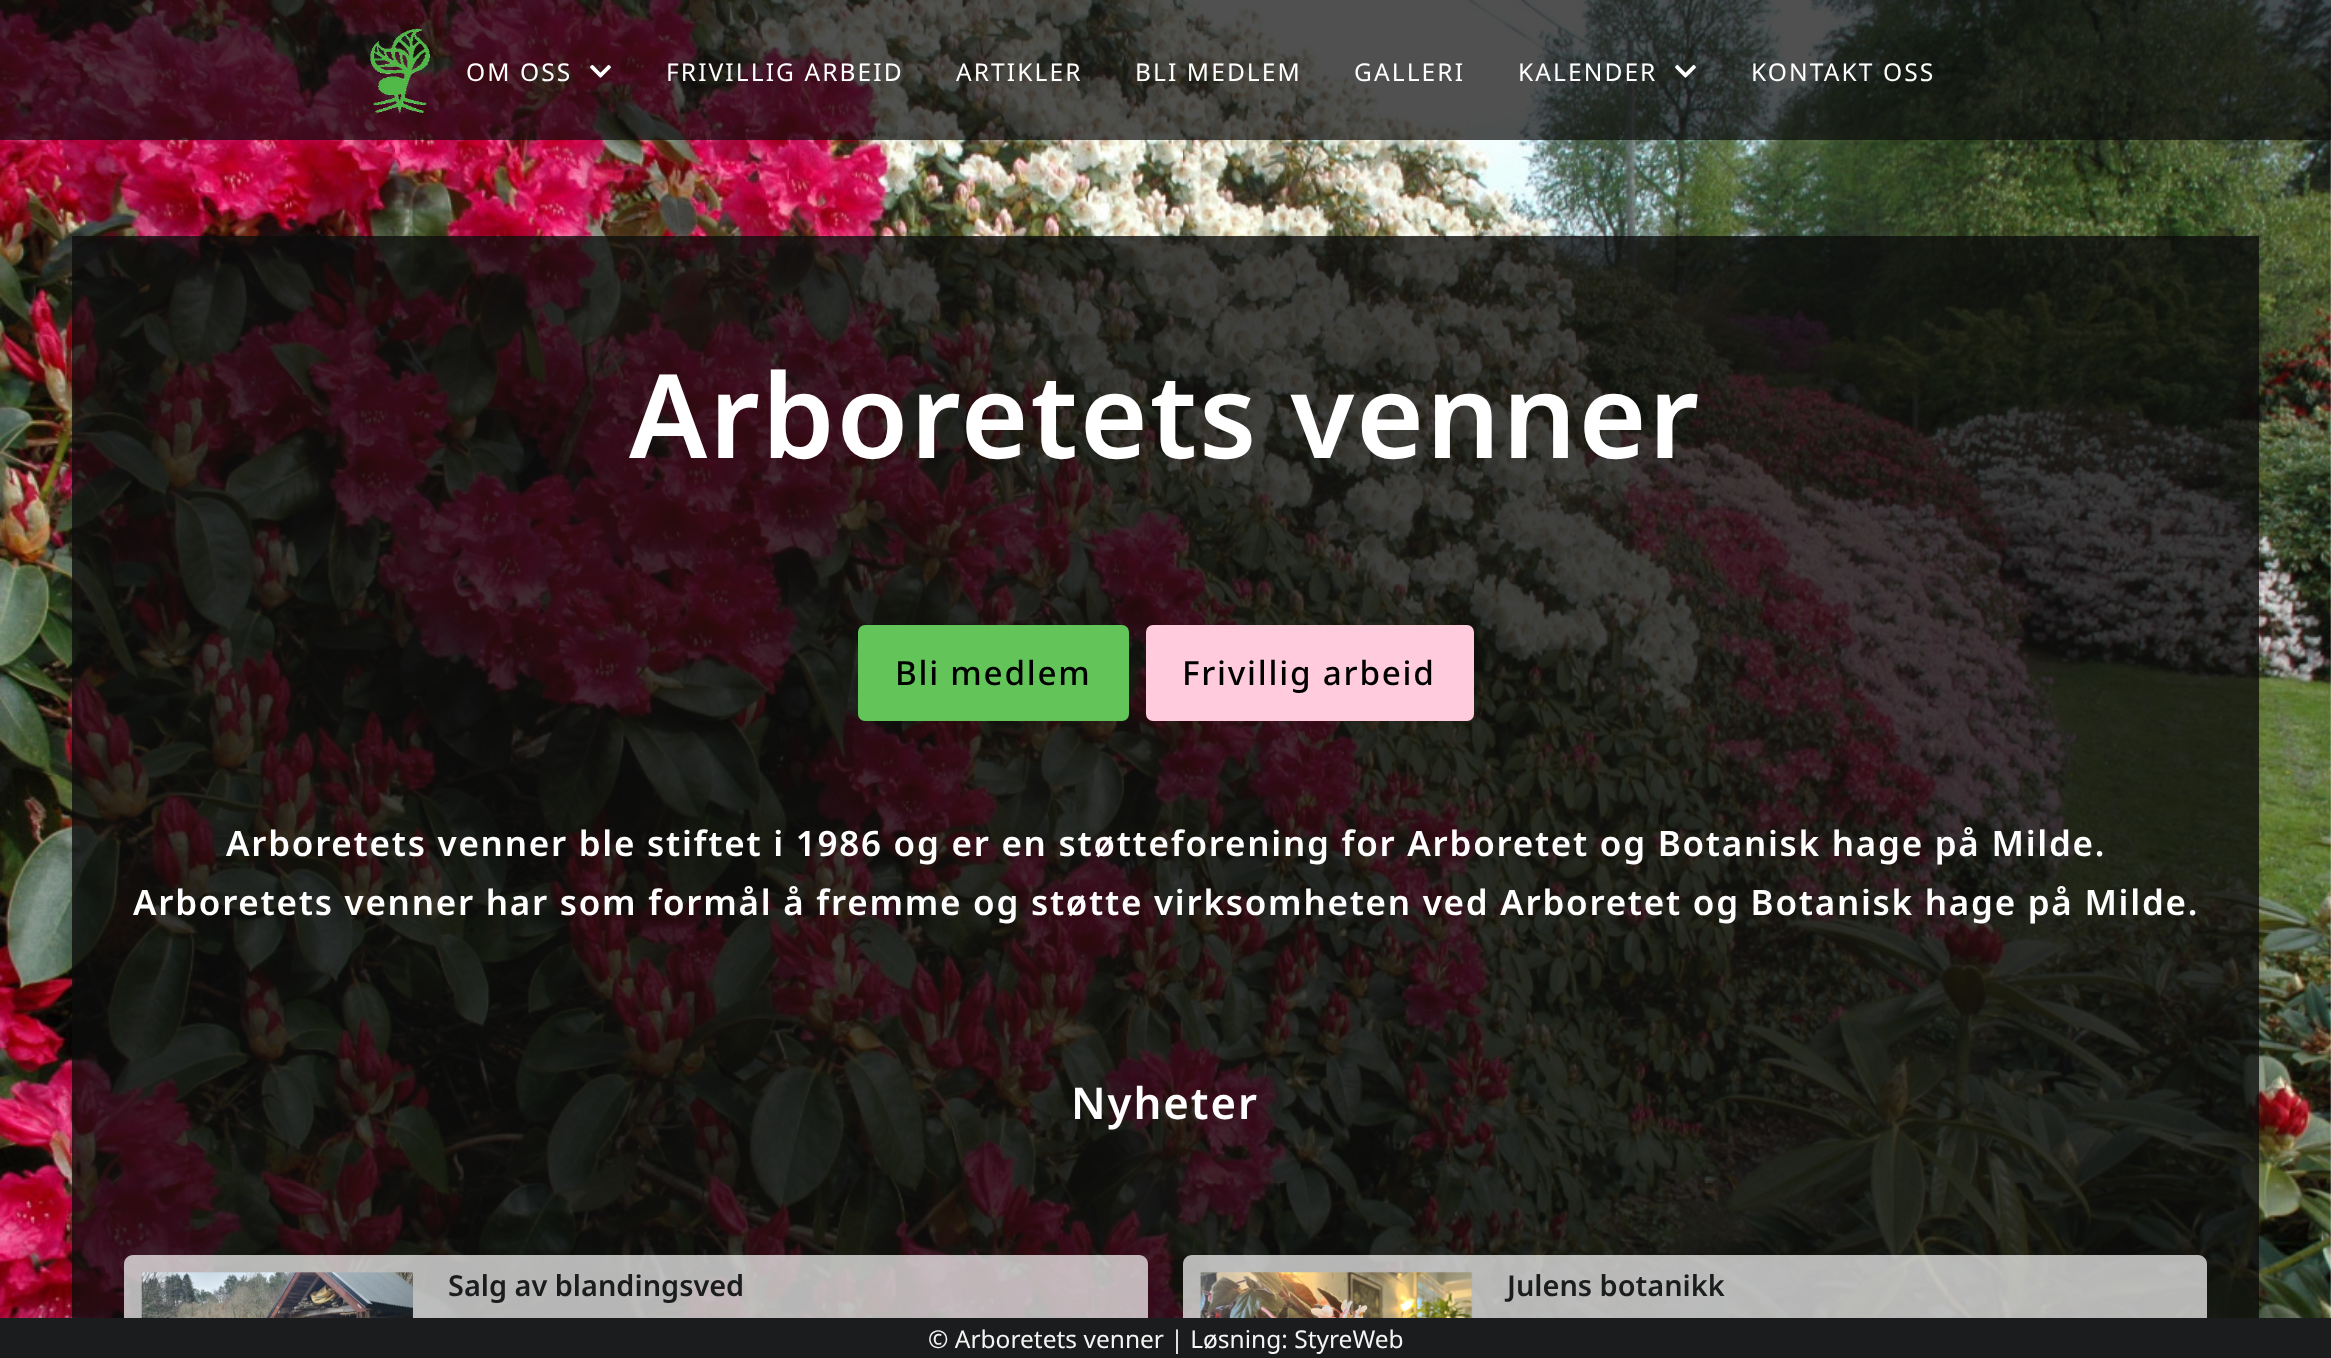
<svg xmlns="http://www.w3.org/2000/svg" width="2331" height="1358" viewBox="0 0 2331 1358">
  <rect width="100%" height="100%" fill="rgb(255,255,255)"/>
  <image x="0" y="0" width="2331" height="1318" href="pic1.png"/>
  <rect x="0" y="0" width="2331" height="140" fill="rgba(13,13,13,0.72)"/>
  <image x="370" y="28" width="60" height="85" href="pic2.png"/>
  <text x="466" y="81" font-family="Noto Sans" font-size="24.5" letter-spacing="2.1" fill="rgb(255,255,255)">OM OSS</text>
  <image x="590" y="65" width="21" height="13" href="pic3.png"/>
  <g font-family="Noto Sans" font-size="24.5" letter-spacing="2.1" fill="rgb(255,255,255)">
    <text x="666" y="81">FRIVILLIG ARBEID</text>
    <text x="956" y="81">ARTIKLER</text>
    <text x="1135" y="81">BLI MEDLEM</text>
    <text x="1354" y="81">GALLERI</text>
    <text x="1518" y="81">KALENDER</text>
  </g>
  <image x="1675" y="65" width="21" height="13" href="pic4.png"/>
  <text x="1751" y="81" font-family="Noto Sans" font-size="24.5" letter-spacing="2.1" fill="rgb(255,255,255)">KONTAKT OSS</text>
  <rect x="72" y="236" width="2187" height="354" fill="rgba(13,13,13,0.79)"/>
  <text x="629" y="458" font-family="Noto Sans" font-size="116.5" font-weight="600" letter-spacing="1.9" fill="rgb(255,255,255)">Arboretets venner</text>
  <rect x="72" y="590" width="2187" height="166" fill="rgba(13,13,13,0.79)"/>
  <rect x="859" y="626" width="269" height="94" rx="6" fill="rgb(99,196,90)" stroke="rgb(99,196,90)" stroke-width="2"/>
  <text x="895" y="685" font-family="Noto Sans" font-size="33.25" font-weight="500" letter-spacing="1.75" fill="rgb(0,0,0)">Bli medlem</text>
  <rect x="1147" y="626" width="326" height="94" rx="6" fill="rgb(255,203,221)" stroke="rgb(255,203,221)" stroke-width="2"/>
  <text x="1182" y="685" font-family="Noto Sans" font-size="33.25" font-weight="500" letter-spacing="1.75" fill="rgb(0,0,0)">Frivillig arbeid</text>
  <rect x="72" y="756" width="2187" height="235" fill="rgba(13,13,13,0.79)"/>
  <g font-family="Noto Sans" font-size="34.97" font-weight="600" letter-spacing="1.75" fill="rgb(255,255,255)">
    <text x="226" y="856">Arboretets venner ble stiftet i 1986 og er en støtteforening for Arboretet og Botanisk hage på Milde.</text>
    <text x="133" y="915">Arboretets venner har som formål å fremme og støtte virksomheten ved Arboretet og Botanisk hage på Milde.</text>
  </g>
  <rect x="72" y="991" width="2187" height="220" fill="rgba(13,13,13,0.79)"/>
  <text x="1071" y="1119" font-family="Noto Sans" font-size="43.75" font-weight="600" letter-spacing="1.9" fill="rgb(255,255,255)">Nyheter</text>
  <rect x="72" y="1211" width="2187" height="107" fill="rgba(13,13,13,0.79)"/>
  <path d="M133 1255H1139C1144 1255 1148 1259 1148 1264V1318H124V1264C124 1259 128 1255 133 1255Z" fill="rgba(255,255,255,0.7)"/>
  <image x="141" y="1272" width="272" height="46" href="pic5.png"/>
  <text x="448" y="1296" font-family="Noto Sans" font-size="28.9" font-weight="600" fill="rgb(27,28,29)">Salg av blandingsved</text>
  <path d="M1192 1255H2198C2203 1255 2207 1259 2207 1264V1318H1183V1264C1183 1259 1187 1255 1192 1255Z" fill="rgba(255,255,255,0.7)"/>
  <image x="1200" y="1271" width="273" height="47" href="pic6.png"/>
  <text x="1507" y="1296" font-family="Noto Sans" font-size="28.9" font-weight="600" fill="rgb(27,28,29)">Julens botanikk</text>
  <rect x="0" y="1318" width="2331" height="40" fill="rgb(27,28,29)"/>
  <text x="928" y="1348" font-family="Noto Sans" font-size="24.5" fill="rgb(245,245,245)">© Arboretets venner | Løsning: StyreWeb</text>
</svg>
